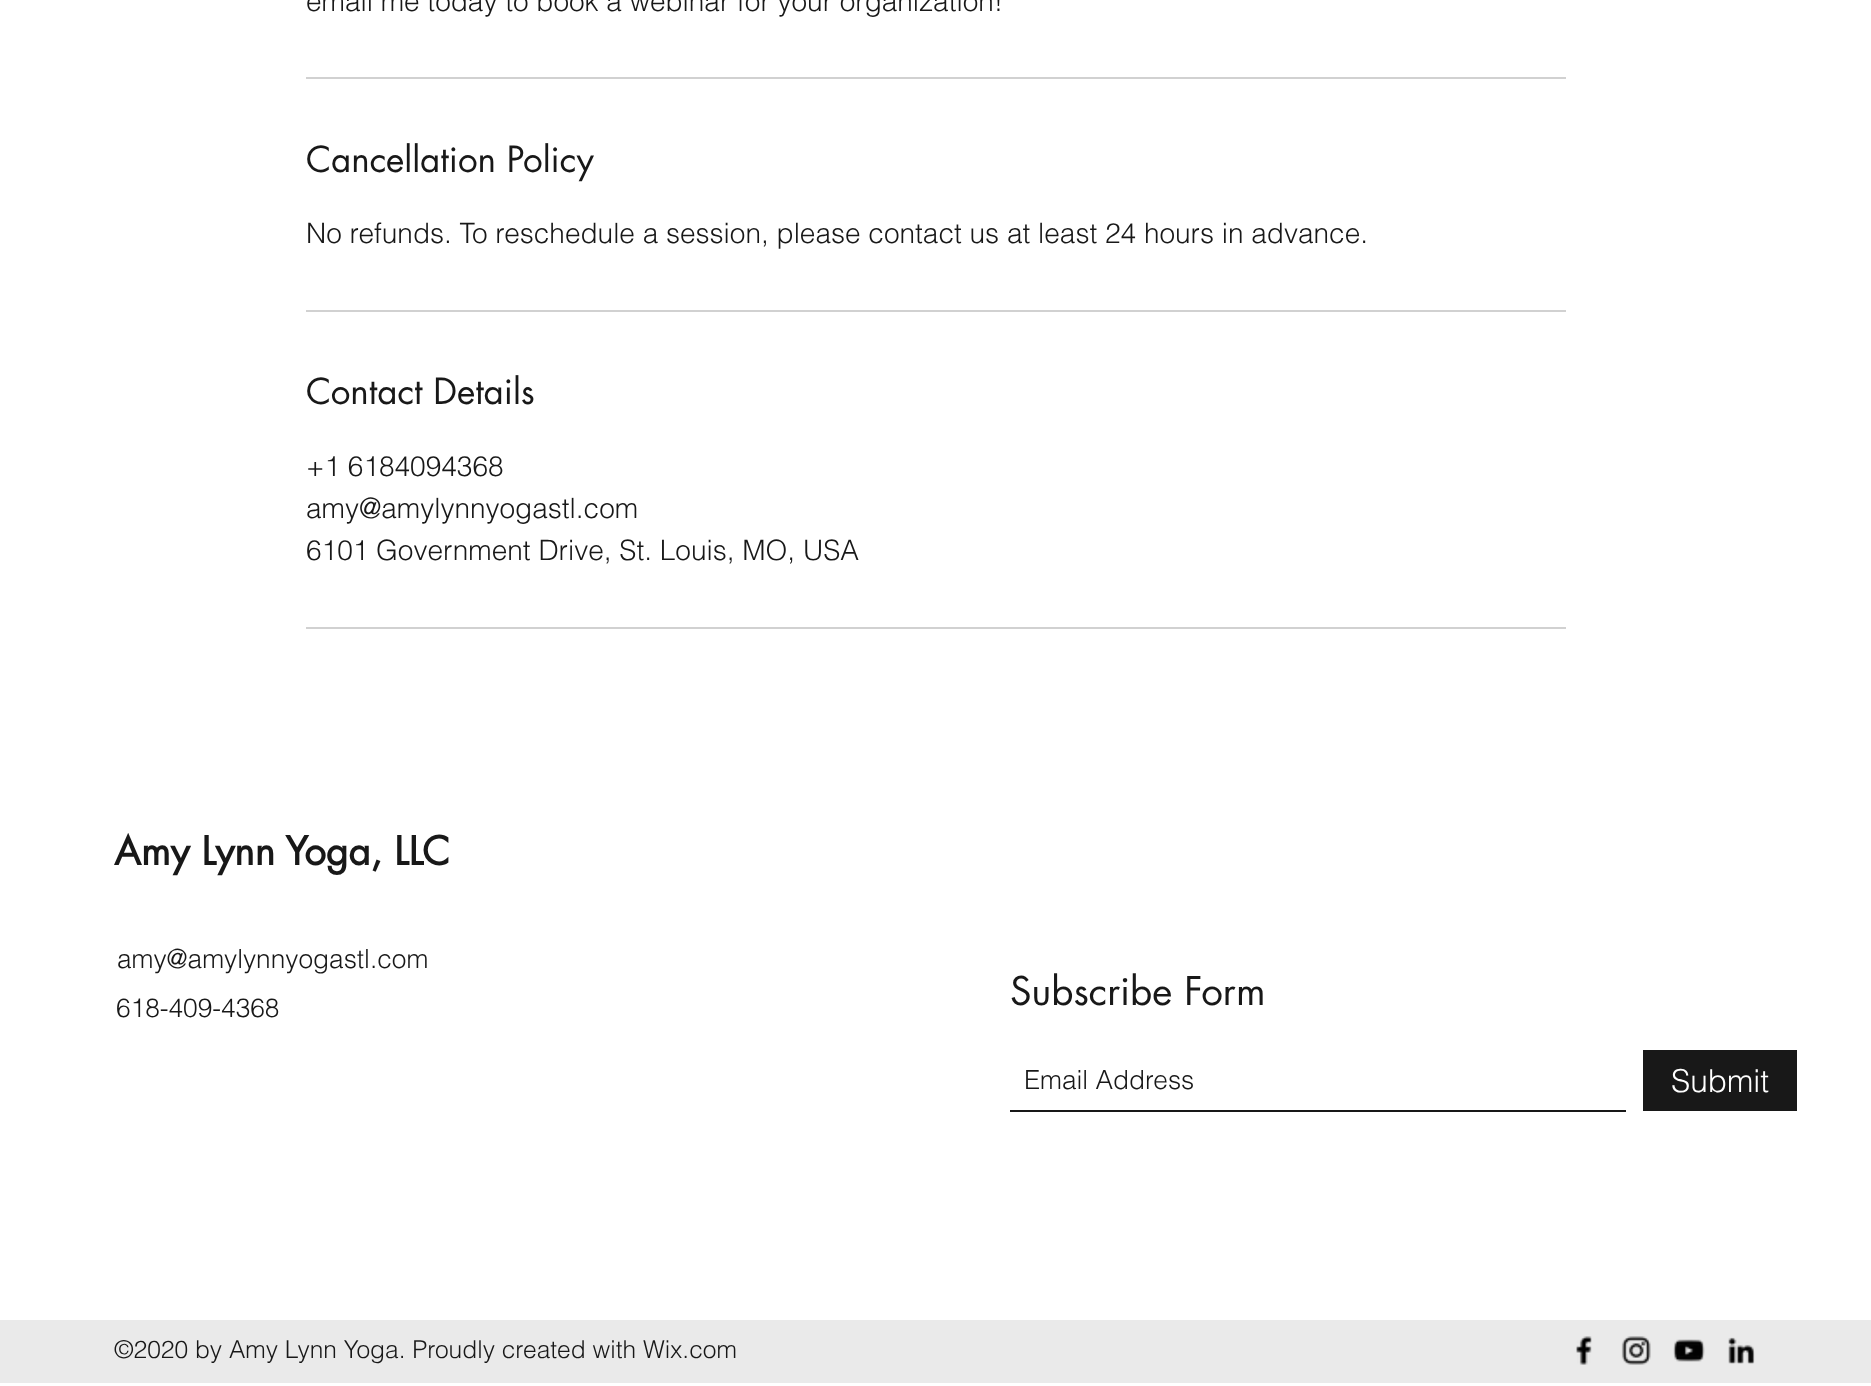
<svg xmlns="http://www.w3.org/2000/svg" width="1871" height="1386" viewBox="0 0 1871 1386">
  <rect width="100%" height="100%" fill="rgb(255,255,255)"/>
  <text x="306" y="11" font-family="helvetica" font-size="28" font-weight="300" fill="rgb(24,24,24)">email me today to book a webinar for your organization!</text>
  <rect x="306" y="77" width="1260" height="2" fill="rgb(209,209,209)"/>
  <text x="306" y="172" font-family="futura" font-size="35" fill="rgb(24,24,24)">Cancellation Policy</text>
  <text x="306" y="243" font-family="helvetica" font-size="28" font-weight="300" fill="rgb(24,24,24)">No refunds. To reschedule a session, please contact us at least 24 hours in advance.</text>
  <rect x="306" y="310" width="1260" height="2" fill="rgb(209,209,209)"/>
  <text x="306" y="404" font-family="futura" font-size="35" fill="rgb(24,24,24)">Contact Details</text>
  <g font-family="helvetica" font-size="28" font-weight="300" fill="rgb(24,24,24)">
    <text>
      <tspan x="306" y="476">+1 6184094368</tspan>
      <tspan x="306" y="518">amy@amylynnyogastl.com</tspan>
      <tspan x="306" y="560">6101 Government Drive, St. Louis, MO, USA</tspan>
    </text>
  </g>
  <rect x="306" y="627" width="1260" height="2" fill="rgb(209,209,209)"/>
  <text x="114" y="865" font-family="futura" font-size="38.5" font-weight="bold" fill="rgb(24,24,24)">Amy Lynn Yoga, LLC</text>
  <g font-family="helvetica" font-size="26.25" font-weight="300" fill="rgb(24,24,24)">
    <text x="117" y="968">amy@amylynnyogastl.com</text>
    <text x="116" y="1017">618-409-4368</text>
  </g>
  <text x="1010" y="1005" font-family="futura" font-size="38.5" fill="rgb(24,24,24)">Subscribe Form</text>
  <rect x="1010" y="1110" width="616" height="2" fill="rgb(24,24,24)"/>
  <text x="1024" y="1089" font-family="helvetica" font-size="26.25" font-weight="300" fill="rgb(24,24,24)">Email Address</text>
  <rect x="1643" y="1050" width="154" height="61" fill="rgb(24,24,24)"/>
  <text x="1671" y="1092" font-family="helvetica" font-size="31.5" font-weight="300" fill="rgb(255,255,255)">Submit</text>
  <rect x="0" y="1320" width="1871" height="63" fill="rgb(234,234,234)"/>
  <text x="114" y="1358" font-family="helvetica" font-size="24.5" font-weight="300" fill="rgb(24,24,24)">©2020 by Amy Lynn Yoga. Proudly created with Wix.com</text>
  <image x="1576" y="1336" width="16" height="29" href="pic1.png"/>
  <image x="1621" y="1336" width="30" height="29" href="pic2.png"/>
  <image x="1673" y="1339" width="32" height="23" href="pic3.png"/>
  <image x="1728" y="1337" width="27" height="27" href="pic4.png"/>
</svg>
